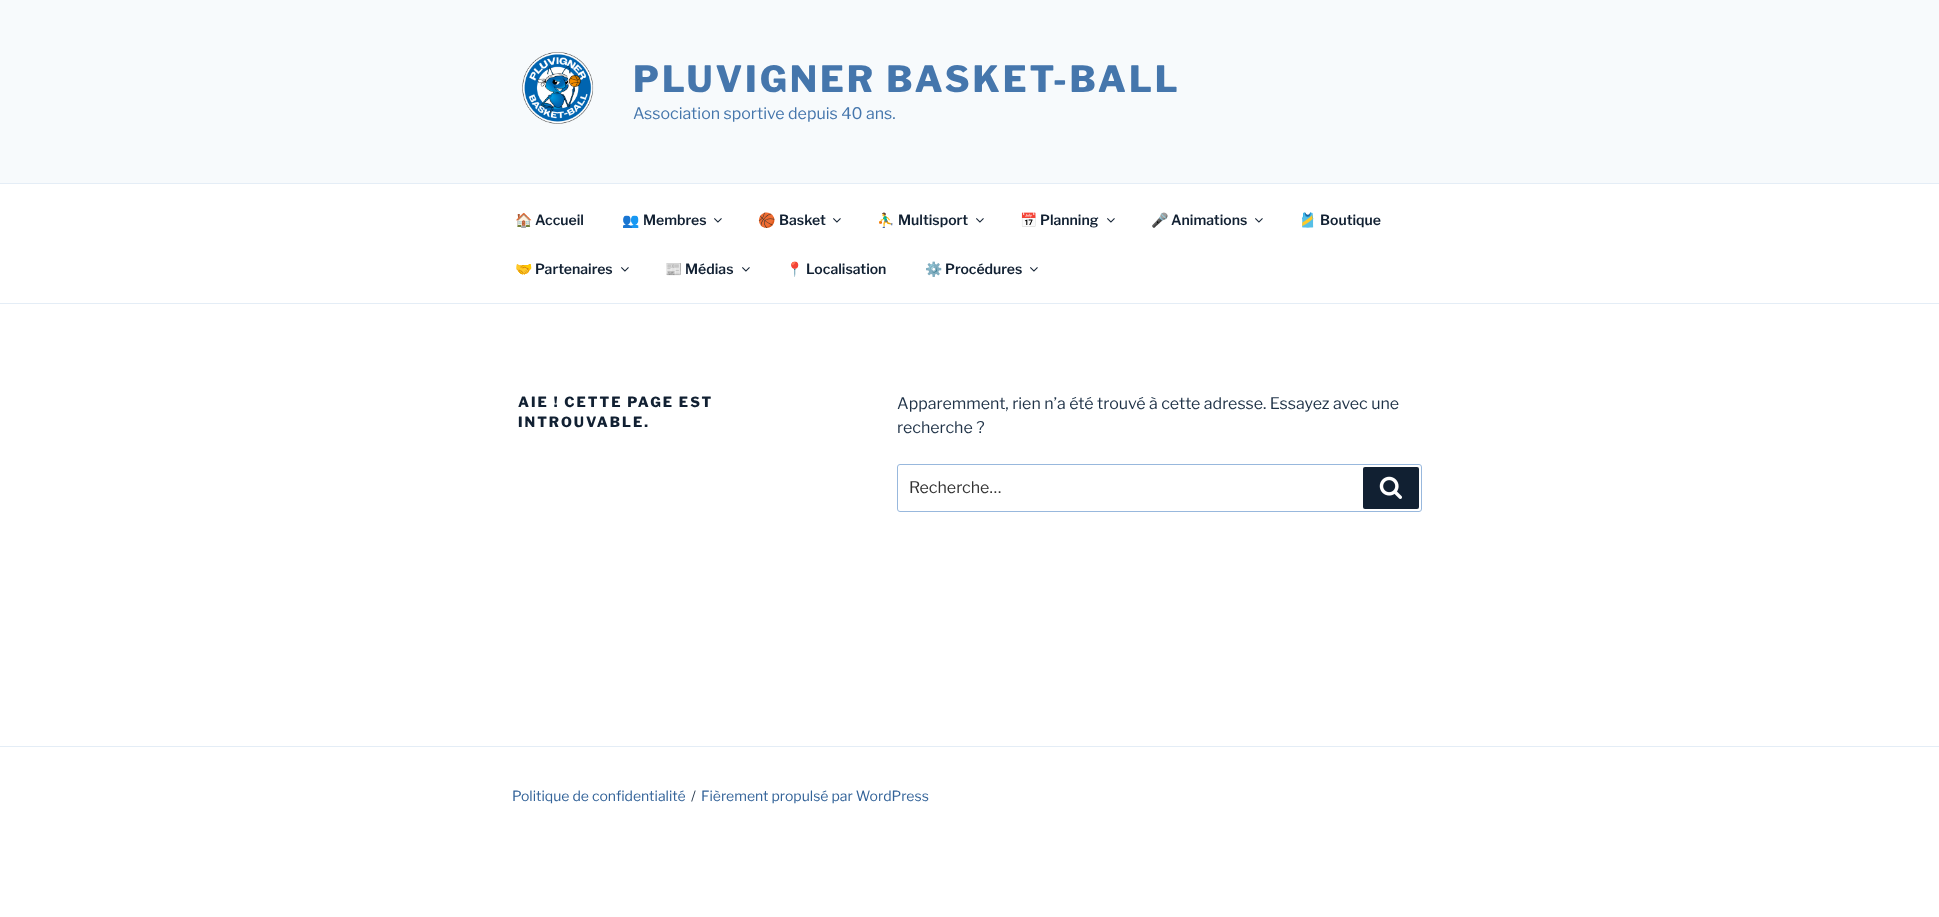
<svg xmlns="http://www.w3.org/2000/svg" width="1939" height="917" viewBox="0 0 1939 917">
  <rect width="100%" height="100%" fill="rgb(255,255,255)"/>
  <rect x="0" y="0" width="1939" height="183" fill="rgb(247,250,252)"/>
  <image x="522" y="52" width="72" height="72" href="pic1.png"/>
  <text x="633" y="92" font-family="Libre Franklin" font-size="36" font-weight="800" letter-spacing="2.9" fill="rgb(69,118,172)">PLUVIGNER BASKET-BALL</text>
  <text x="633" y="119" font-family="Libre Franklin" font-size="16" fill="rgb(69,118,172)">Association sportive depuis 40 ans.</text>
  <rect x="0" y="183" width="1939" height="1" fill="rgb(228,237,246)"/>
  <rect x="0" y="303" width="1939" height="1" fill="rgb(228,237,246)"/>
  <text x="515" y="225" font-family="Noto Color Emoji" font-size="14" font-weight="bold" fill="rgb(17,32,50)">🏠</text>
  <text x="535" y="225" font-family="Libre Franklin" font-size="14" font-weight="600" fill="rgb(17,32,50)">Accueil</text>
  <text x="622" y="225" font-family="Noto Color Emoji" font-size="14" font-weight="bold" fill="rgb(17,32,50)">👥</text>
  <text x="643" y="225" font-family="Libre Franklin" font-size="14" font-weight="600" fill="rgb(17,32,50)">Membres</text>
  <image x="714" y="218" width="8" height="5" href="pic2.png"/>
  <text x="758" y="225" font-family="Noto Color Emoji" font-size="14" font-weight="bold" fill="rgb(17,32,50)">🏀</text>
  <text x="779" y="225" font-family="Libre Franklin" font-size="14" font-weight="600" fill="rgb(17,32,50)">Basket</text>
  <image x="833" y="218" width="8" height="5" href="pic2.png"/>
  <text x="877" y="225" font-family="Noto Color Emoji" font-size="14" font-weight="bold" fill="rgb(17,32,50)">⛹️‍♂️</text>
  <text x="898" y="225" font-family="Libre Franklin" font-size="14" font-weight="600" fill="rgb(17,32,50)">Multisport</text>
  <image x="976" y="218" width="8" height="5" href="pic2.png"/>
  <text x="1020" y="225" font-family="Noto Color Emoji" font-size="14" font-weight="bold" fill="rgb(17,32,50)">📅</text>
  <text x="1040" y="225" font-family="Libre Franklin" font-size="14" font-weight="600" fill="rgb(17,32,50)">Planning</text>
  <image x="1107" y="218" width="8" height="5" href="pic2.png"/>
  <text x="1151" y="225" font-family="Noto Color Emoji" font-size="14" font-weight="bold" fill="rgb(17,32,50)">🎤</text>
  <text x="1171" y="225" font-family="Libre Franklin" font-size="14" font-weight="600" fill="rgb(17,32,50)">Animations</text>
  <image x="1255" y="218" width="8" height="5" href="pic2.png"/>
  <text x="1299" y="225" font-family="Noto Color Emoji" font-size="14" font-weight="bold" fill="rgb(17,32,50)">🎽</text>
  <text x="1320" y="225" font-family="Libre Franklin" font-size="14" font-weight="600" fill="rgb(17,32,50)">Boutique</text>
  <text x="515" y="274" font-family="Noto Color Emoji" font-size="14" font-weight="bold" fill="rgb(17,32,50)">🤝</text>
  <text x="535" y="274" font-family="Libre Franklin" font-size="14" font-weight="600" fill="rgb(17,32,50)">Partenaires</text>
  <image x="621" y="267" width="8" height="5" href="pic2.png"/>
  <text x="665" y="274" font-family="Noto Color Emoji" font-size="14" font-weight="bold" fill="rgb(17,32,50)">📰</text>
  <text x="685" y="274" font-family="Libre Franklin" font-size="14" font-weight="600" fill="rgb(17,32,50)">Médias</text>
  <image x="742" y="267" width="8" height="5" href="pic2.png"/>
  <text x="786" y="274" font-family="Noto Color Emoji" font-size="14" font-weight="bold" fill="rgb(17,32,50)">📍</text>
  <text x="806" y="274" font-family="Libre Franklin" font-size="14" font-weight="600" fill="rgb(17,32,50)">Localisation</text>
  <text x="925" y="274" font-family="Noto Color Emoji" font-size="14" font-weight="bold" fill="rgb(17,32,50)">⚙️</text>
  <text x="945" y="274" font-family="Libre Franklin" font-size="14" font-weight="600" fill="rgb(17,32,50)">Procédures</text>
  <image x="1030" y="267" width="8" height="5" href="pic2.png"/>
  <g font-family="Libre Franklin" font-size="14" font-weight="800" letter-spacing="2" fill="rgb(17,32,50)">
    <text>
      <tspan x="518" y="407">AIE ! CETTE PAGE EST</tspan>
      <tspan x="518" y="427">INTROUVABLE.</tspan>
    </text>
  </g>
  <g font-family="Libre Franklin" font-size="16" fill="rgb(31,50,71)">
    <text>
      <tspan x="897" y="409">Apparemment, rien n’a été trouvé à cette adresse. Essayez avec une</tspan>
      <tspan x="897" y="433">recherche ?</tspan>
    </text>
  </g>
  <rect x="897.5" y="464.5" width="524" height="47" rx="2.5" fill="none" stroke="rgb(152,184,221)"/>
  <text x="909" y="493" font-family="Libre Franklin" font-size="16" fill="rgb(51,51,51)">Recherche…</text>
  <rect x="1363" y="467" width="56" height="42" rx="2" fill="rgb(17,32,50)"/>
  <image x="1379" y="476" width="23" height="23" href="pic3.png"/>
  <rect x="0" y="746" width="1939" height="1" fill="rgb(228,237,246)"/>
  <text x="512" y="801" font-family="Libre Franklin" font-size="14" fill="rgb(51,99,153)">Politique de confidentialité</text>
  <text x="691" y="801" font-family="Libre Franklin" font-size="14" fill="rgb(31,50,71)">/</text>
  <text x="701" y="801" font-family="Libre Franklin" font-size="14" fill="rgb(51,99,153)">Fièrement propulsé par WordPress</text>
</svg>
